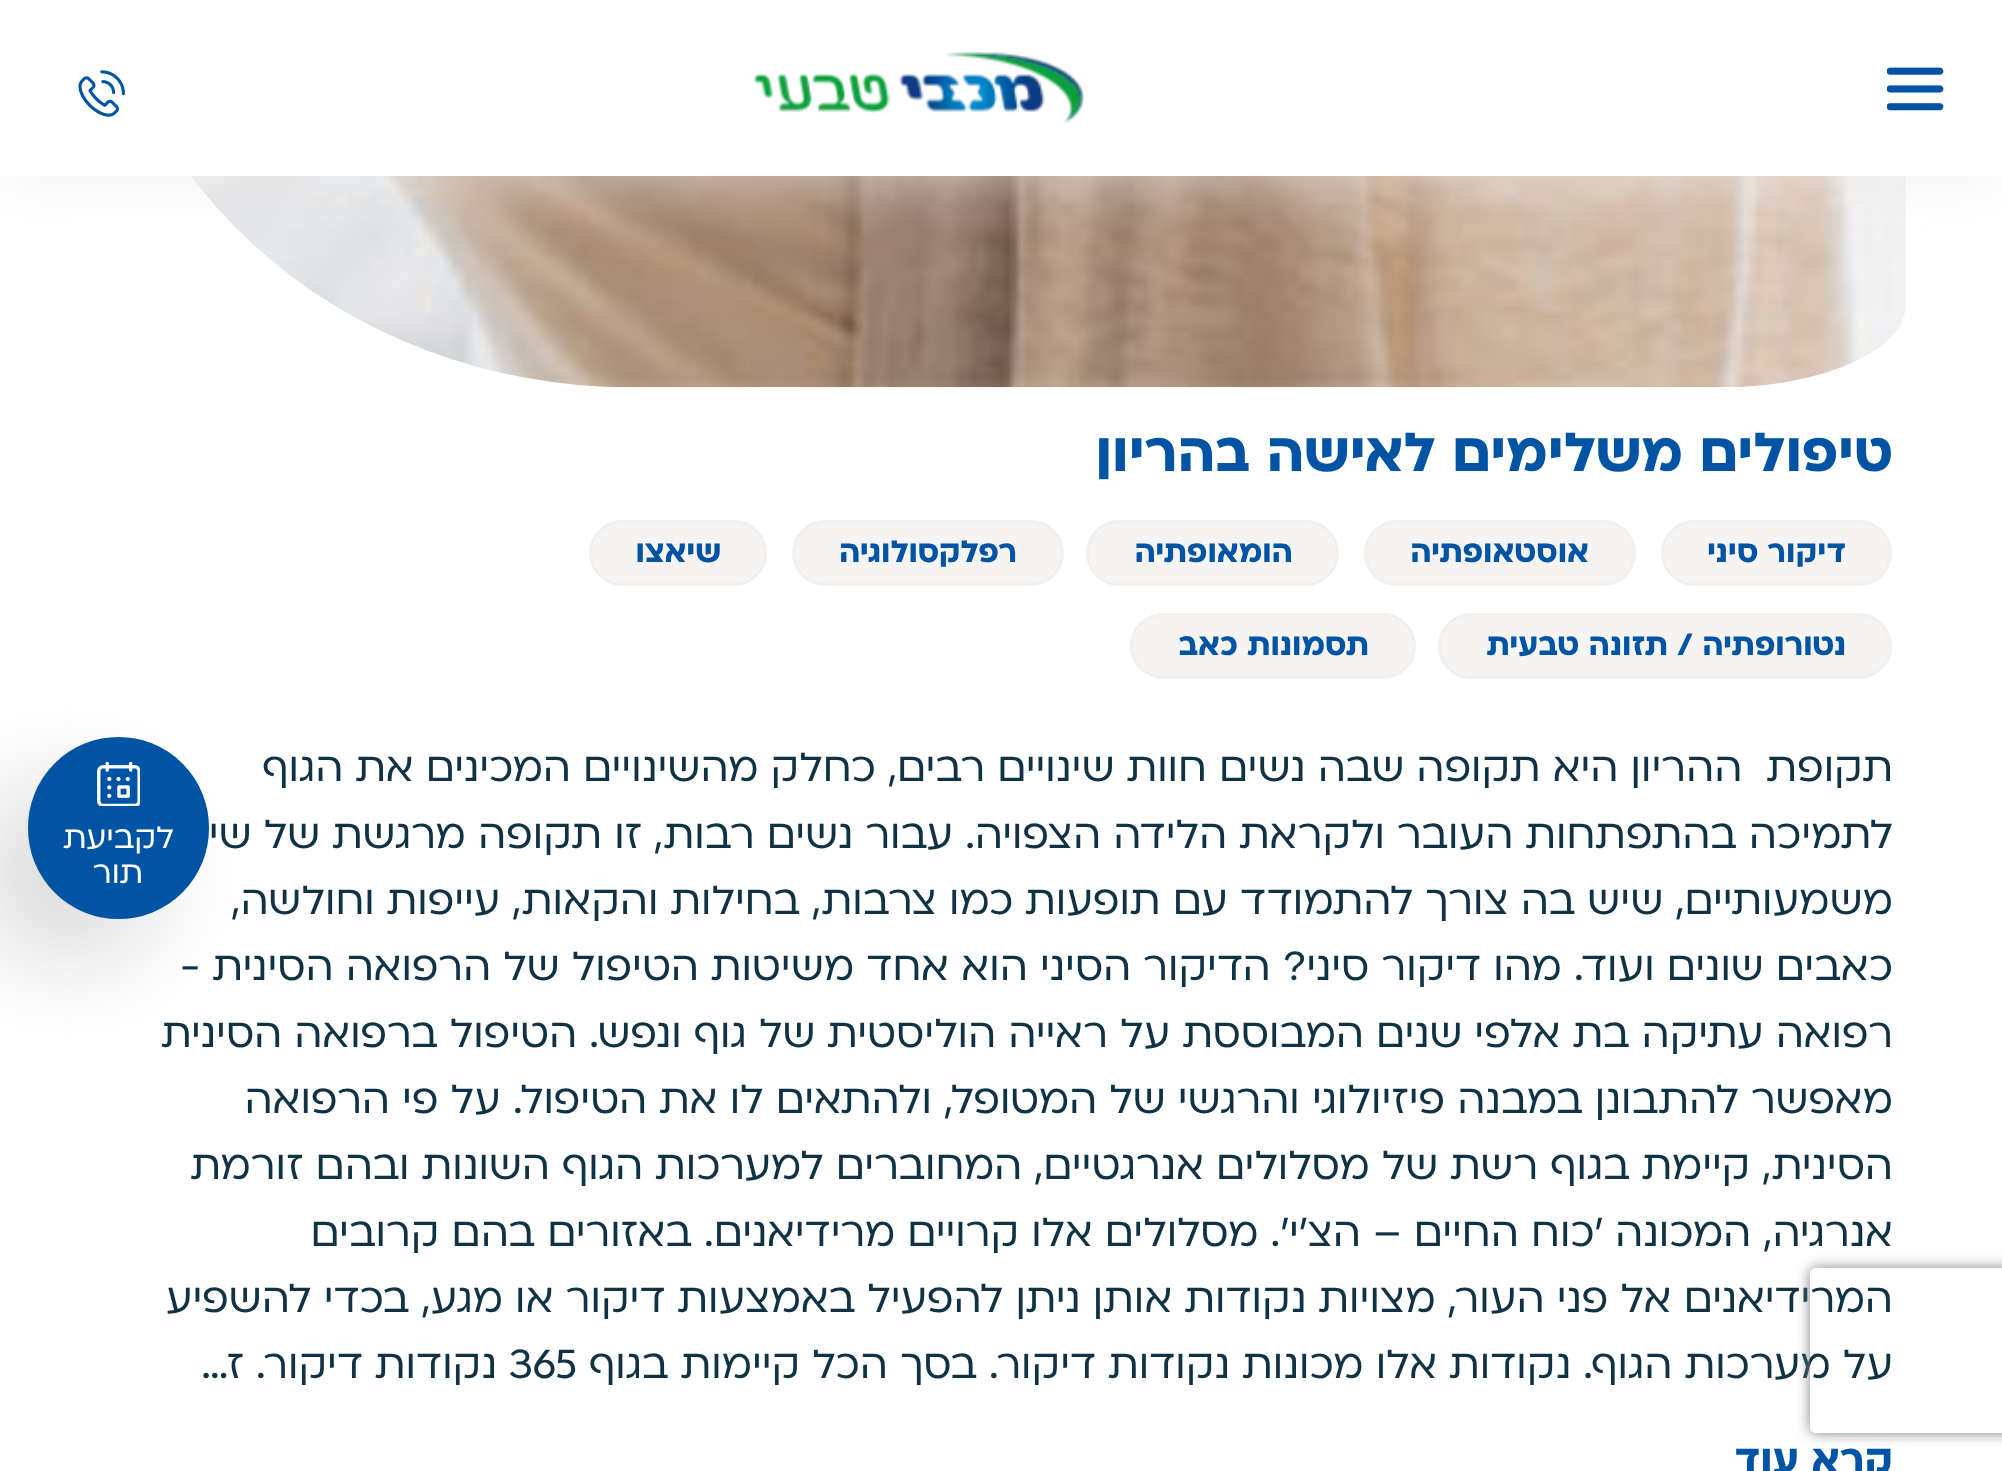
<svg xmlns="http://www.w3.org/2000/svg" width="2002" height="1471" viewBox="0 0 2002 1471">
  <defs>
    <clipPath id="clip1"><path d="M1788 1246H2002V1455H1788ZM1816 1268H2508C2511.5 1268 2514 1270.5 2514 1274V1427C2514 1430.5 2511.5 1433 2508 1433H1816C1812.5 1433 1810 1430.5 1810 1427V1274C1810 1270.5 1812.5 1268 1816 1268Z" clip-rule="evenodd"/></clipPath>
  </defs>
  <rect width="100%" height="100%" fill="rgb(255,255,255)"/>
  <image x="191" y="176" width="1715" height="212" href="pic1.png"/>
  <text x="1893" y="471" font-family="'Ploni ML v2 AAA'" font-size="63.25" font-weight="bold" direction="rtl" fill="rgb(0,84,163)">טיפולים משלימים לאישה בהריון</text>
  <rect x="1662.5" y="521.5" width="228" height="63" rx="31.5" fill="rgb(246,244,242)" stroke="rgb(240,240,240)" stroke-width="3"/>
  <text x="1846" y="562" font-family="'Ploni ML v2 AAA'" font-size="35.75" font-weight="bold" direction="rtl" fill="rgb(0,84,163)">דיקור סיני</text>
  <rect x="1365.5" y="521.5" width="269" height="63" rx="31.5" fill="rgb(246,244,242)" stroke="rgb(240,240,240)" stroke-width="3"/>
  <text x="1589" y="562" font-family="'Ploni ML v2 AAA'" font-size="35.75" font-weight="bold" direction="rtl" fill="rgb(0,84,163)">אוסטאופתיה</text>
  <rect x="1087.5" y="521.5" width="250" height="63" rx="31.5" fill="rgb(246,244,242)" stroke="rgb(240,240,240)" stroke-width="3"/>
  <text x="1293" y="562" font-family="'Ploni ML v2 AAA'" font-size="35.75" font-weight="bold" direction="rtl" fill="rgb(0,84,163)">הומאופתיה</text>
  <rect x="793.5" y="521.5" width="269" height="63" rx="31.5" fill="rgb(246,244,242)" stroke="rgb(240,240,240)" stroke-width="3"/>
  <text x="1017" y="562" font-family="'Ploni ML v2 AAA'" font-size="35.75" font-weight="bold" direction="rtl" fill="rgb(0,84,163)">רפלקסולוגיה</text>
  <rect x="590.5" y="521.5" width="175" height="63" rx="31.5" fill="rgb(246,244,242)" stroke="rgb(240,240,240)" stroke-width="3"/>
  <text x="721" y="562" font-family="'Ploni ML v2 AAA'" font-size="35.75" font-weight="bold" direction="rtl" fill="rgb(0,84,163)">שיאצו</text>
  <rect x="1439.5" y="614.5" width="451" height="63" rx="31.5" fill="rgb(246,244,242)" stroke="rgb(240,240,240)" stroke-width="3"/>
  <text x="1846" y="655" font-family="'Ploni ML v2 AAA'" font-size="35.75" font-weight="bold" direction="rtl" fill="rgb(0,84,163)">נטורופתיה / תזונה טבעית</text>
  <rect x="1131.5" y="614.5" width="283" height="63" rx="31.5" fill="rgb(246,244,242)" stroke="rgb(240,240,240)" stroke-width="3"/>
  <text x="1369" y="655" font-family="'Ploni ML v2 AAA'" font-size="35.75" font-weight="bold" direction="rtl" fill="rgb(0,84,163)">תסמונות כאב</text>
  <g font-family="'Ploni ML v2 AAA'" font-size="46.75" direction="rtl" fill="rgb(16,50,69)">
    <text xml:space="preserve"><tspan x="1893" y="781">תקופת  ההריון היא תקופה שבה נשים חוות שינויים רבים, כחלק מהשינויים המכינים את הגוף</tspan><tspan x="1893" y="848">לתמיכה בהתפתחות העובר ולקראת הלידה הצפויה. עבור נשים רבות, זו תקופה מרגשת של שינויים</tspan><tspan x="1893" y="914">משמעותיים, שיש בה צורך להתמודד עם תופעות כמו צרבות, בחילות והקאות, עייפות וחולשה,</tspan><tspan x="1893" y="980">כאבים שונים ועוד. מהו דיקור סיני? הדיקור הסיני הוא אחד משיטות הטיפול של הרפואה הסינית -</tspan><tspan x="1893" y="1047">רפואה עתיקה בת אלפי שנים המבוססת על ראייה הוליסטית של גוף ונפש. הטיפול ברפואה הסינית</tspan><tspan x="1893" y="1113">מאפשר להתבונן במבנה פיזיולוגי והרגשי של המטופל, ולהתאים לו את הטיפול. על פי הרפואה</tspan><tspan x="1893" y="1179">הסינית, קיימת בגוף רשת של מסלולים אנרגטיים, המחוברים למערכות הגוף השונות ובהם זורמת</tspan><tspan x="1893" y="1246">אנרגיה, המכונה 'כוח החיים – הצ'י'. מסלולים אלו קרויים מרידיאנים. באזורים בהם קרובים</tspan><tspan x="1893" y="1312">המרידיאנים אל פני העור, מצויות נקודות אותן ניתן להפעיל באמצעות דיקור או מגע, בכדי להשפיע</tspan><tspan x="1893" y="1378">על מערכות הגוף. נקודות אלו מכונות נקודות דיקור. בסך הכל קיימות בגוף</tspan></text>
  </g>
  <text x="509" y="1378" font-family="'Ploni ML v2 AAA'" font-size="46.75" fill="rgb(16,50,69)">365</text>
  <text x="497" y="1378" font-family="'Ploni ML v2 AAA'" font-size="46.75" direction="rtl" fill="rgb(16,50,69)">נקודות דיקור. ז…</text>
  <text x="1893" y="1473" font-family="'Ploni ML v2 AAA'" font-size="46.75" font-weight="bold" direction="rtl" fill="rgb(0,84,163)">קרא עוד</text>
  <rect x="0" y="0" width="2002" height="176" fill="rgba(238,235,235,0.75)" filter="blur(34.5px)"/>
  <rect x="0" y="0" width="2002" height="176" fill="rgb(255,255,255)"/>
  <image x="1887" y="67" width="57" height="44" href="pic2.png"/>
  <image x="754" y="51" width="330" height="72" href="pic3.png"/>
  <image x="78" y="70" width="47" height="47" href="pic4.png"/>
  <rect x="-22" y="781" width="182" height="182" rx="91" fill="rgba(0,1,0,0.14)" filter="blur(48px)"/>
  <rect x="31" y="740" width="175" height="176" rx="87.5" fill="rgb(0,84,163)" stroke="rgb(0,84,163)" stroke-width="6"/>
  <image x="97" y="762" width="43" height="44" href="pic5.png"/>
  <g font-family="'Ploni ML v2 AAA'" font-size="35.75" direction="rtl" fill="rgb(255,255,255)">
    <text x="174" y="848">לקביעת</text>
    <text x="143" y="883">תור</text>
  </g>
  <g clip-path="url(#clip1)">
    <rect x="1810" y="1268" width="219" height="165" rx="6" fill="rgb(128,128,128)" filter="blur(7px)"/>
  </g>
</svg>
